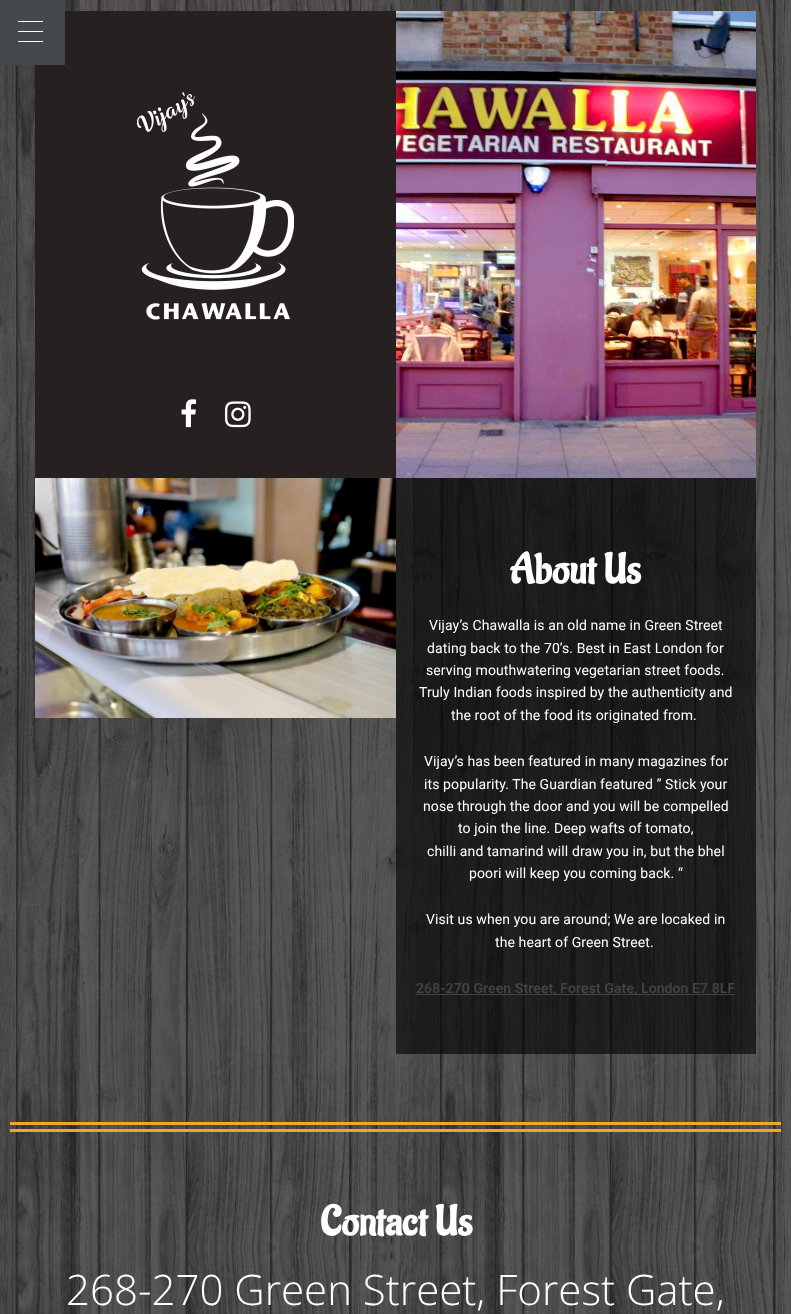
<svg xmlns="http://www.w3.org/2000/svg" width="791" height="1314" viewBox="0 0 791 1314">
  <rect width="100%" height="100%" fill="rgb(255,255,255)"/>
  <image x="0" y="0" width="791" height="1314" href="pic1.png"/>
  <rect x="35" y="11" width="361" height="467" fill="rgb(39,32,32)"/>
  <rect x="0" y="0" width="65" height="65" fill="rgb(68,73,75)"/>
  <rect x="18" y="31" width="25" height="1" fill="rgb(255,255,255)"/>
  <rect x="18" y="21" width="25" height="1" fill="rgb(255,255,255)"/>
  <rect x="18" y="41" width="25" height="1" fill="rgb(255,255,255)"/>
  <image x="137" y="92" width="157" height="228" href="pic2.png"/>
  <image x="181" y="399" width="16" height="29" href="pic3.png"/>
  <image x="225" y="401" width="26" height="27" href="pic4.png"/>
  <image x="396" y="11" width="360" height="467" href="pic5.png"/>
  <image x="35" y="478" width="361" height="240" href="pic6.png"/>
  <rect x="396" y="478" width="360" height="576" fill="rgba(0,0,0,0.61)"/>
  <text x="510" y="583" font-family="Aladin" font-size="42" font-weight="bold" fill="rgb(255,255,255)">About Us</text>
  <g font-family="Roboto" font-size="14" letter-spacing="0.1" fill="rgb(255,255,255)">
    <text x="429" y="630">Vijay’s Chawalla is an old name in Green Street</text>
    <text x="427" y="653">dating back to the 70’s. Best in East London for</text>
    <text x="426" y="675">serving mouthwatering vegetarian street foods.</text>
    <text x="419" y="697">Truly Indian foods inspired by the authenticity and</text>
    <text x="451" y="720">the root of the food its originated from.</text>
    <text>
      <tspan x="424" y="766">Vijay’s has been featured in many magazines for</tspan>
      <tspan x="424" y="789">its popularity. The Guardian featured ” Stick your</tspan>
    </text>
    <text x="423" y="811">nose through the door and you will be compelled</text>
    <text x="458" y="833">to join the line. Deep wafts of tomato,</text>
    <text x="427" y="856">chilli and tamarind will draw you in, but the bhel</text>
    <text x="469" y="878">poori will keep you coming back. “</text>
    <text x="426" y="924">Visit us when you are around; We are locaked in</text>
    <text x="495" y="947">the heart of Green Street.</text>
  </g>
  <rect x="416" y="994" width="319" height="1" fill="rgb(68,68,68)"/>
  <text x="416" y="993" font-family="Roboto" font-size="14" font-weight="600" letter-spacing="0.1" fill="rgb(68,68,68)">268-270 Green Street, Forest Gate, London E7 8LF</text>
  <rect x="10" y="1122" width="771" height="3" fill="rgb(238,167,38)"/>
  <rect x="10" y="1129" width="771" height="3" fill="rgb(238,167,38)"/>
  <text x="320" y="1235" font-family="Aladin" font-size="42" font-weight="bold" fill="rgb(255,255,255)">Contact Us</text>
  <text x="66" y="1305" font-family="Open Sans" font-size="42" font-weight="300" fill="rgb(255,255,255)">268-270 Green Street, Forest Gate,</text>
</svg>
